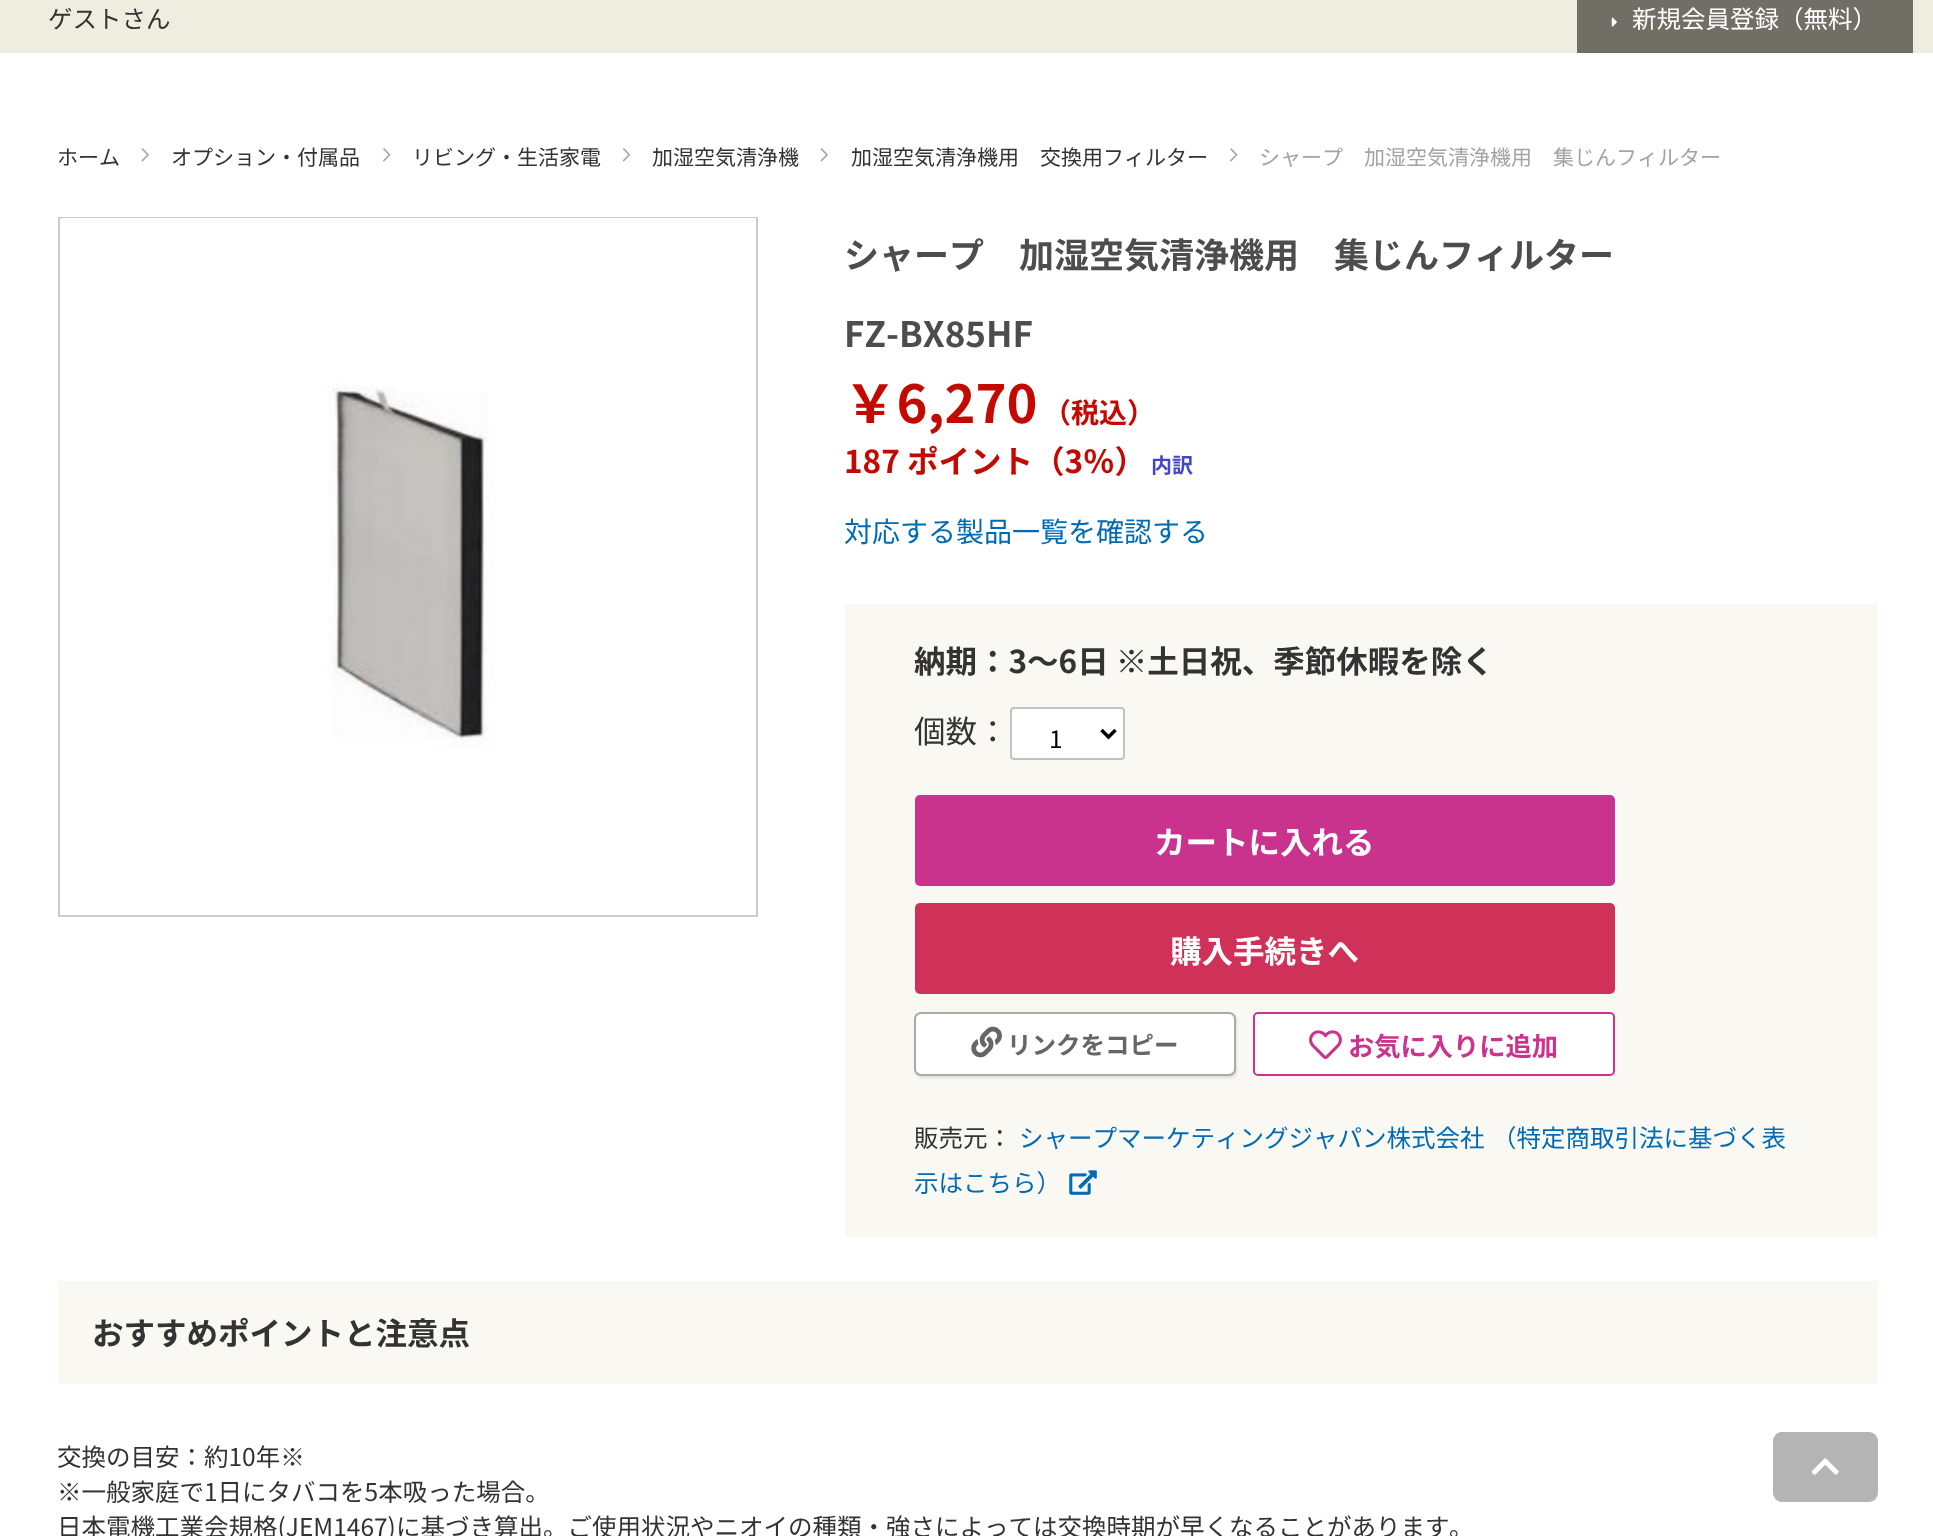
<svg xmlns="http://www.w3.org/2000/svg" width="1933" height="1536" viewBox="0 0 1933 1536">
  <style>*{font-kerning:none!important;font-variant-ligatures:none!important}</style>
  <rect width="100%" height="100%" fill="rgb(255,255,255)"/>
  <rect x="0" y="0" width="1933" height="53" fill="rgb(239,237,224)"/>
  <text x="48" y="28" font-family="Noto Sans JP" font-size="24.5" fill="rgb(51,51,51)">ゲストさん</text>
  <rect x="1577" y="0" width="336" height="53" fill="rgb(113,111,101)"/>
  <image x="1611" y="17" width="6" height="10" href="pic1.png"/>
  <text x="1632" y="28" font-family="Noto Sans JP" font-size="24.5" fill="rgb(255,255,255)">新規会員登録（無料）</text>
  <text x="57" y="165" font-family="Noto Sans JP" font-size="21" fill="rgb(51,51,51)">ホーム</text>
  <image x="141" y="148" width="8" height="14" href="pic2.png"/>
  <text x="171" y="165" font-family="Noto Sans JP" font-size="21" fill="rgb(51,51,51)">オプション・付属品</text>
  <image x="383" y="148" width="8" height="14" href="pic3.png"/>
  <text x="412" y="165" font-family="Noto Sans JP" font-size="21" fill="rgb(51,51,51)">リビング・生活家電</text>
  <image x="622" y="148" width="9" height="14" href="pic4.png"/>
  <text x="652" y="165" font-family="Noto Sans JP" font-size="21" fill="rgb(51,51,51)">加湿空気清浄機</text>
  <image x="820" y="148" width="8" height="14" href="pic2.png"/>
  <text x="851" y="165" font-family="Noto Sans JP" font-size="21" fill="rgb(51,51,51)">加湿空気清浄機用　交換用フィルター</text>
  <image x="1230" y="148" width="8" height="14" href="pic3.png"/>
  <text x="1259" y="165" font-family="Noto Sans JP" font-size="21" fill="rgb(163,163,163)">シャープ　加湿空気清浄機用　集じんフィルター</text>
  <rect x="59" y="218" width="698" height="698" fill="none" stroke="rgb(204,204,204)" stroke-width="2"/>
  <image x="60" y="218" width="696" height="530" href="pic5.png"/>
  <g font-family="Noto Sans JP" font-size="35" font-weight="bold" fill="rgb(77,77,77)">
    <text x="844" y="268">シャープ　加湿空気清浄機用　集じんフィルター</text>
    <text x="844" y="347">FZ-BX85HF</text>
  </g>
  <text x="844" y="423" font-family="Noto Sans JP" font-size="52.5" font-weight="bold" fill="rgb(195,9,1)">￥6,270</text>
  <text x="1043" y="423" font-family="Noto Sans JP" font-size="28" font-weight="bold" fill="rgb(195,9,1)">（税込）</text>
  <text x="844" y="473" font-family="Noto Sans JP" font-size="31.5" font-weight="bold" fill="rgb(195,9,1)">187 ポイント（3％）</text>
  <text x="1151" y="473" font-family="Noto Sans JP" font-size="21" font-weight="bold" fill="rgb(68,68,204)">内訳</text>
  <text x="844" y="542" font-family="Noto Sans JP" font-size="28" fill="rgb(0,107,180)">対応する製品一覧を確認する</text>
  <rect x="845" y="604" width="1033" height="633" fill="rgb(249,248,243)"/>
  <text x="914" y="673" font-family="Noto Sans JP" font-size="31.5" font-weight="bold" fill="rgb(51,51,51)">納期：3～6日 ※土日祝、季節休暇を除く</text>
  <text x="914" y="743" font-family="Noto Sans JP" font-size="31.5" fill="rgb(51,51,51)">個数：</text>
  <rect x="1011" y="708" width="113" height="51" rx="3" fill="rgb(255,255,255)" stroke="rgb(194,194,194)" stroke-width="2"/>
  <path d="M1101.5 730L1108.5 737L1115.5 730" fill="none" stroke="rgb(0,0,0)" stroke-width="3.5"/>
  <text x="1049" y="748" font-family="Noto Sans JP" font-size="24.5" fill="rgb(0,0,0)">1</text>
  <rect x="915" y="795" width="700" height="91" rx="5" fill="rgb(201,51,142)"/>
  <text x="1154" y="854" font-family="Noto Sans JP" font-size="31.5" font-weight="bold" fill="rgb(255,255,255)">カートに入れる</text>
  <rect x="915" y="903" width="700" height="91" rx="5" fill="rgb(208,49,89)"/>
  <text x="1170" y="963" font-family="Noto Sans JP" font-size="31.5" font-weight="bold" fill="rgb(255,255,255)">購入手続きへ</text>
  <rect x="915" y="1013" width="322" height="65" rx="7" fill="rgba(0,0,0,0.1)" filter="blur(1px)"/>
  <rect x="915" y="1013" width="320" height="62" rx="6" fill="rgb(255,255,255)" stroke="rgb(170,170,170)" stroke-width="2"/>
  <image x="971" y="1026" width="31" height="32" href="pic6.png"/>
  <text x="1007" y="1054" font-family="Noto Sans JP" font-size="24.5" font-weight="bold" fill="rgb(102,102,102)">リンクをコピー</text>
  <rect x="1254" y="1013" width="360" height="62" rx="4" fill="rgb(255,255,255)" stroke="rgb(204,51,142)" stroke-width="2"/>
  <image x="1309" y="1030" width="33" height="29" href="pic7.png"/>
  <text x="1348" y="1056" font-family="Noto Sans JP" font-size="26.25" font-weight="bold" fill="rgb(204,51,142)">お気に入りに追加</text>
  <text x="914" y="1147" font-family="Noto Sans JP" font-size="24.5" fill="rgb(51,51,51)">販売元：</text>
  <g font-family="Noto Sans JP" font-size="24.5" fill="rgb(0,107,180)">
    <text x="1019" y="1147">シャープマーケティングジ</text>
    <text x="1313" y="1147">ャパン株式会社</text>
    <text x="1492" y="1147">（特定商取引法に基づく表</text>
    <text x="914" y="1192">示はこちら）</text>
  </g>
  <image x="1069" y="1170" width="28" height="25" href="pic8.png"/>
  <rect x="58" y="1281" width="1820" height="103" fill="rgb(249,248,243)"/>
  <text x="92" y="1345" font-family="Noto Sans JP" font-size="31.5" font-weight="bold" fill="rgb(51,51,51)">おすすめポイントと注意点</text>
  <g font-family="Noto Sans JP" font-size="24.5" fill="rgb(51,51,51)">
    <text>
      <tspan x="57" y="1466">交換の目安：約10年※</tspan>
      <tspan x="57" y="1501">※一般家庭で1日にタバコを5本吸った場合。</tspan>
      <tspan x="57" y="1536">日本電機工業会規格(JEM1467)に基づき算出。ご使用状況やニオイの種類・強さによっては交換時期が早くなることがあります</tspan>
    </text>
    <text x="1449" y="1536">。</text>
  </g>
  <rect x="1773" y="1432" width="105" height="70" rx="9" fill="rgb(180,180,180)"/>
  <image x="1811" y="1458" width="28" height="17" href="pic9.png"/>
</svg>
